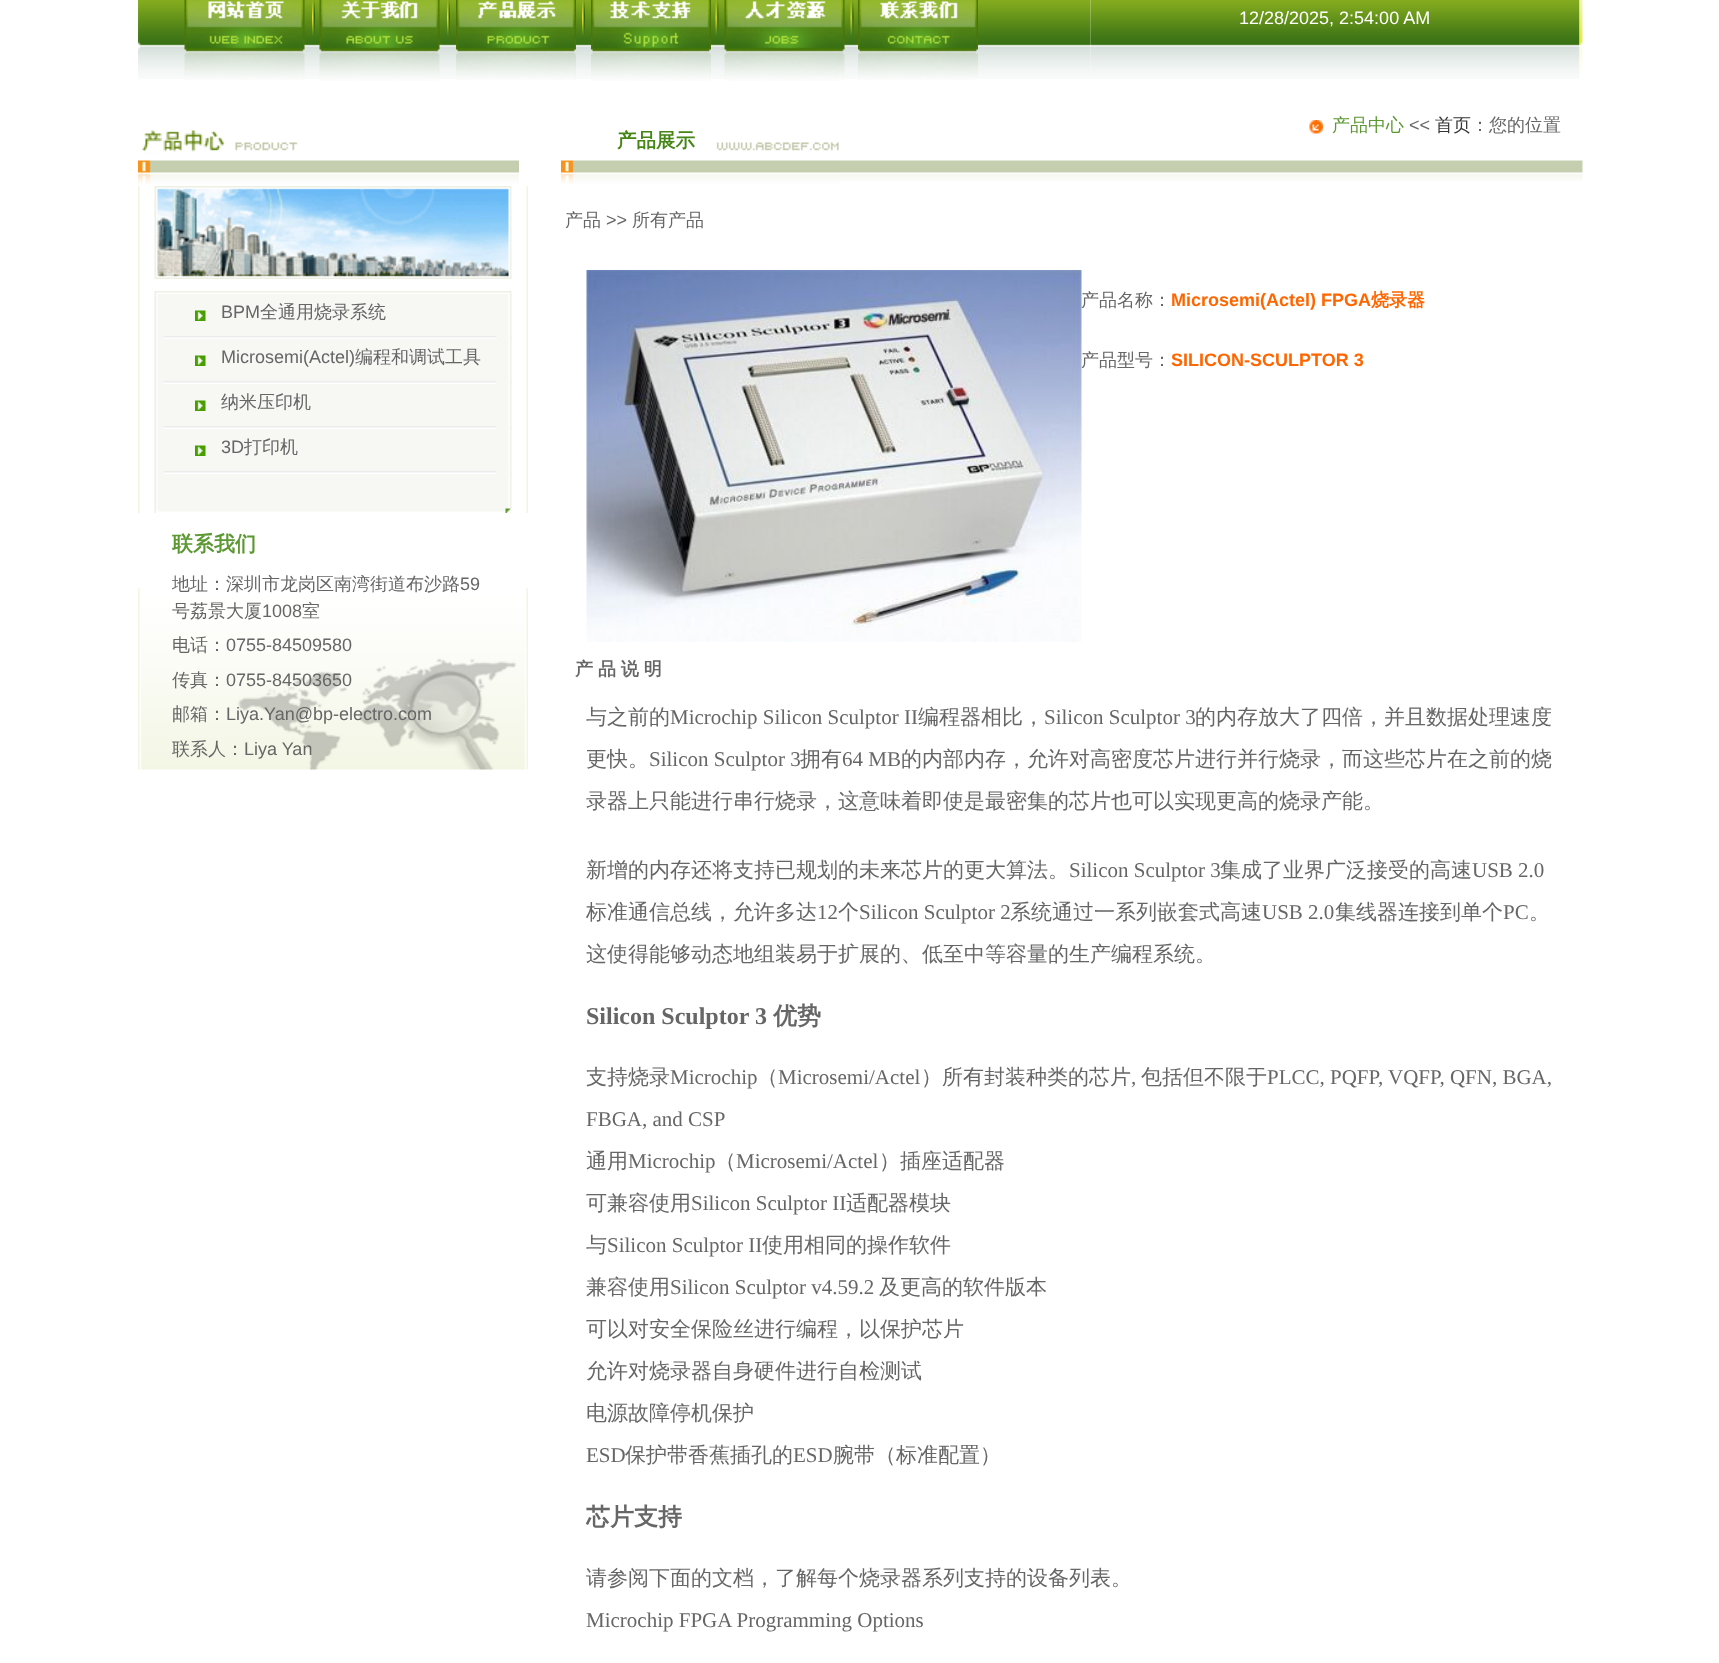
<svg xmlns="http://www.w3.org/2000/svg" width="1719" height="1663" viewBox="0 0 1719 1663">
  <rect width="100%" height="100%" fill="rgb(255,255,255)"/>
  <image x="138" y="0" width="3" height="79" href="pic1.png"/>
  <image x="141" y="0" width="948" height="79" href="pic2.png"/>
  <image x="184" y="10" width="122" height="36" href="pic3.png"/>
  <image x="184" y="0" width="121" height="80" href="pic4.png"/>
  <image x="312" y="0" width="3" height="36" href="pic5.png"/>
  <image x="319" y="10" width="124" height="36" href="pic6.png"/>
  <image x="319" y="0" width="121" height="81" href="pic7.png"/>
  <image x="447" y="0" width="3" height="36" href="pic5.png"/>
  <image x="456" y="0" width="120" height="80" href="pic8.png"/>
  <image x="582" y="0" width="3" height="36" href="pic5.png"/>
  <image x="591" y="0" width="120" height="81" href="pic9.png"/>
  <image x="715" y="0" width="4" height="36" href="pic10.png"/>
  <image x="724" y="0" width="121" height="81" href="pic11.png"/>
  <image x="850" y="0" width="4" height="36" href="pic10.png"/>
  <image x="858" y="0" width="120" height="80" href="pic12.png"/>
  <image x="1089" y="0" width="2" height="79" href="pic13.png"/>
  <image x="1090" y="0" width="490" height="79" href="pic14.png"/>
  <text x="1239" y="24" font-family="Liberation Sans" font-size="18" fill="rgb(255,255,255)">12/28/2025, 2:54:00 AM</text>
  <image x="1579" y="0" width="4" height="74" href="pic15.png"/>
  <image x="138" y="130" width="381" height="54" href="pic16.png"/>
  <image x="138" y="186" width="390" height="105" href="pic17.png"/>
  <image x="154" y="186" width="358" height="93" href="pic18.png"/>
  <image x="138" y="291" width="390" height="222" href="pic19.png"/>
  <image x="154" y="291" width="358" height="3" href="pic20.png"/>
  <image x="154" y="294" width="358" height="180" href="pic21.png"/>
  <image x="195" y="310" width="11" height="11" href="pic22.png"/>
  <text x="221" y="318" font-family="Liberation Sans" font-size="18" fill="rgb(102,102,102)">BPM</text>
  <text x="260" y="318" font-family="WenQuanYi Zen Hei" font-size="18" font-weight="500" fill="rgb(102,102,102)">全通用烧录系统</text>
  <image x="154" y="336" width="358" height="3" href="pic23.png"/>
  <image x="195" y="355" width="11" height="11" href="pic22.png"/>
  <text x="221" y="363" font-family="Liberation Sans" font-size="18" fill="rgb(102,102,102)">Microsemi(Actel)</text>
  <text x="355" y="363" font-family="WenQuanYi Zen Hei" font-size="18" font-weight="500" fill="rgb(102,102,102)">编程和调试工具</text>
  <image x="154" y="381" width="358" height="3" href="pic23.png"/>
  <image x="195" y="400" width="11" height="11" href="pic22.png"/>
  <text x="221" y="408" font-family="WenQuanYi Zen Hei" font-size="18" font-weight="500" fill="rgb(102,102,102)">纳米压印机</text>
  <image x="154" y="426" width="358" height="3" href="pic23.png"/>
  <image x="195" y="445" width="11" height="11" href="pic22.png"/>
  <text x="221" y="453" font-family="Liberation Sans" font-size="18" fill="rgb(102,102,102)">3D</text>
  <text x="244" y="453" font-family="WenQuanYi Zen Hei" font-size="18" font-weight="500" fill="rgb(102,102,102)">打印机</text>
  <image x="154" y="471" width="358" height="3" href="pic23.png"/>
  <image x="154" y="474" width="358" height="39" href="pic24.png"/>
  <image x="138" y="588" width="390" height="182" href="pic25.png"/>
  <text x="172" y="551" font-family="WenQuanYi Zen Hei" font-size="21" font-weight="bold" fill="rgb(91,152,50)">联系我们</text>
  <text x="172" y="590" font-family="WenQuanYi Zen Hei" font-size="18" font-weight="500" fill="rgb(102,102,102)">地址：深圳市龙岗区南湾街道布沙路</text>
  <text x="460" y="590" font-family="Liberation Sans" font-size="18" fill="rgb(102,102,102)">59</text>
  <text x="172" y="617" font-family="WenQuanYi Zen Hei" font-size="18" font-weight="500" fill="rgb(102,102,102)">号荔景大厦</text>
  <text x="262" y="617" font-family="Liberation Sans" font-size="18" fill="rgb(102,102,102)">1008</text>
  <g font-family="WenQuanYi Zen Hei" font-size="18" font-weight="500" fill="rgb(102,102,102)">
    <text x="302" y="617">室</text>
    <text x="172" y="651">电话：</text>
  </g>
  <text x="226" y="651" font-family="Liberation Sans" font-size="18" fill="rgb(102,102,102)">0755-84509580</text>
  <text x="172" y="686" font-family="WenQuanYi Zen Hei" font-size="18" font-weight="500" fill="rgb(102,102,102)">传真：</text>
  <text x="226" y="686" font-family="Liberation Sans" font-size="18" fill="rgb(102,102,102)">0755-84503650</text>
  <text x="172" y="720" font-family="WenQuanYi Zen Hei" font-size="18" font-weight="500" fill="rgb(102,102,102)">邮箱：</text>
  <text x="226" y="720" font-family="Liberation Sans" font-size="18" fill="rgb(102,102,102)">Liya.Yan@bp-electro.com</text>
  <text x="172" y="755" font-family="WenQuanYi Zen Hei" font-size="18" font-weight="500" fill="rgb(102,102,102)">联系人：</text>
  <text x="244" y="755" font-family="Liberation Sans" font-size="18" fill="rgb(102,102,102)">Liya Yan</text>
  <image x="839" y="160" width="744" height="21" href="pic26.png"/>
  <image x="1309" y="120" width="14" height="14" href="pic27.png"/>
  <text x="1332" y="131" font-family="WenQuanYi Zen Hei" font-size="18" font-weight="500" fill="rgb(91,152,50)">产品中心</text>
  <text x="1409" y="131" font-family="Liberation Sans" font-size="18" fill="rgb(102,102,102)">&lt;&lt;</text>
  <text x="1435" y="131" font-family="WenQuanYi Zen Hei" font-size="18" font-weight="500" fill="rgb(53,53,53)">首页</text>
  <text x="1471" y="131" font-family="WenQuanYi Zen Hei" font-size="18" font-weight="500" fill="rgb(102,102,102)">：您的位置</text>
  <image x="561" y="142" width="278" height="42" href="pic28.png"/>
  <text x="617" y="147" font-family="WenQuanYi Zen Hei" font-size="19.5" font-weight="bold" fill="rgb(70,134,22)">产品展示</text>
  <text x="565" y="226" font-family="WenQuanYi Zen Hei" font-size="18" font-weight="500" fill="rgb(102,102,102)">产品</text>
  <text x="606" y="226" font-family="Liberation Sans" font-size="18" fill="rgb(102,102,102)">&gt;&gt;</text>
  <text x="632" y="226" font-family="WenQuanYi Zen Hei" font-size="18" font-weight="500" fill="rgb(102,102,102)">所有产品</text>
  <image x="586" y="270" width="496" height="372" href="pic29.png"/>
  <text x="1081" y="306" font-family="WenQuanYi Zen Hei" font-size="18" font-weight="500" fill="rgb(102,102,102)">产品名称：</text>
  <text x="1171" y="306" font-family="Liberation Sans" font-size="18" font-weight="bold" fill="rgb(255,102,0)">Microsemi(Actel) FPGA</text>
  <text x="1371" y="306" font-family="WenQuanYi Zen Hei" font-size="18" font-weight="bold" fill="rgb(255,102,0)">烧录器</text>
  <text x="1081" y="366" font-family="WenQuanYi Zen Hei" font-size="18" font-weight="500" fill="rgb(102,102,102)">产品型号：</text>
  <text x="1171" y="366" font-family="Liberation Sans" font-size="18" font-weight="bold" fill="rgb(255,102,0)">SILICON-SCULPTOR 3</text>
  <text x="575" y="675" word-spacing="-0.5" font-family="WenQuanYi Zen Hei" font-size="18" font-weight="bold" fill="rgb(102,102,102)">产 品 说 明</text>
  <text x="586" y="724" font-family="WenQuanYi Zen Hei" font-size="21" font-weight="500" fill="rgb(102,102,102)">与之前的</text>
  <text x="670" y="724" font-family="Liberation Serif" font-size="21" fill="rgb(102,102,102)">Microchip Silicon Sculptor II</text>
  <text x="918" y="724" font-family="WenQuanYi Zen Hei" font-size="21" font-weight="500" fill="rgb(102,102,102)">编程器相比，</text>
  <text x="1044" y="724" font-family="Liberation Serif" font-size="21" fill="rgb(102,102,102)">Silicon Sculptor 3</text>
  <g font-family="WenQuanYi Zen Hei" font-size="21" font-weight="500" fill="rgb(102,102,102)">
    <text x="1195" y="724">的内存放大了四倍，并且数据处理速度</text>
    <text x="586" y="766">更快。</text>
  </g>
  <text x="649" y="766" font-family="Liberation Serif" font-size="21" fill="rgb(102,102,102)">Silicon Sculptor 3</text>
  <text x="800" y="766" font-family="WenQuanYi Zen Hei" font-size="21" font-weight="500" fill="rgb(102,102,102)">拥有</text>
  <text x="842" y="766" font-family="Liberation Serif" font-size="21" fill="rgb(102,102,102)">64 MB</text>
  <g font-family="WenQuanYi Zen Hei" font-size="21" font-weight="500" fill="rgb(102,102,102)">
    <text x="901" y="766">的内部内存，允许对高密度芯片进行并行烧录，而这些芯片在之前的烧</text>
    <text x="586" y="808">录器上只能进行串行烧录，这意味着即使是最密集的芯片也可以实现更高的烧录产能。</text>
    <text x="586" y="877">新增的内存还将支持已规划的未来芯片的更大算法。</text>
  </g>
  <text x="1069" y="877" font-family="Liberation Serif" font-size="21" fill="rgb(102,102,102)">Silicon Sculptor 3</text>
  <text x="1220" y="877" font-family="WenQuanYi Zen Hei" font-size="21" font-weight="500" fill="rgb(102,102,102)">集成了业界广泛接受的高速</text>
  <text x="1472" y="877" font-family="Liberation Serif" font-size="21" fill="rgb(102,102,102)">USB 2.0</text>
  <text x="586" y="919" font-family="WenQuanYi Zen Hei" font-size="21" font-weight="500" fill="rgb(102,102,102)">标准通信总线，允许多达</text>
  <text x="817" y="919" font-family="Liberation Serif" font-size="21" fill="rgb(102,102,102)">12</text>
  <text x="838" y="919" font-family="WenQuanYi Zen Hei" font-size="21" font-weight="500" fill="rgb(102,102,102)">个</text>
  <text x="859" y="919" font-family="Liberation Serif" font-size="21" fill="rgb(102,102,102)">Silicon Sculptor 2</text>
  <text x="1010" y="919" font-family="WenQuanYi Zen Hei" font-size="21" font-weight="500" fill="rgb(102,102,102)">系统通过一系列嵌套式高速</text>
  <text x="1262" y="919" font-family="Liberation Serif" font-size="21" fill="rgb(102,102,102)">USB 2.0</text>
  <text x="1335" y="919" font-family="WenQuanYi Zen Hei" font-size="21" font-weight="500" fill="rgb(102,102,102)">集线器连接到单个</text>
  <text x="1503" y="919" font-family="Liberation Serif" font-size="21" fill="rgb(102,102,102)">PC</text>
  <g font-family="WenQuanYi Zen Hei" font-size="21" font-weight="500" fill="rgb(102,102,102)">
    <text x="1529" y="919">。</text>
    <text x="586" y="961">这使得能够动态地组装易于扩展的、低至中等容量的生产编程系统。</text>
  </g>
  <text x="586" y="1024" font-family="Liberation Serif" font-size="24" font-weight="bold" fill="rgb(102,102,102)">Silicon Sculptor 3</text>
  <text x="773" y="1024" font-family="WenQuanYi Zen Hei" font-size="24" font-weight="bold" fill="rgb(102,102,102)">优势</text>
  <text x="586" y="1084" font-family="WenQuanYi Zen Hei" font-size="21" font-weight="500" fill="rgb(102,102,102)">支持烧录</text>
  <text x="670" y="1084" font-family="Liberation Serif" font-size="21" fill="rgb(102,102,102)">Microchip</text>
  <text x="757" y="1084" font-family="WenQuanYi Zen Hei" font-size="21" font-weight="500" fill="rgb(102,102,102)">（</text>
  <text x="778" y="1084" font-family="Liberation Serif" font-size="21" fill="rgb(102,102,102)">Microsemi/Actel</text>
  <text x="921" y="1084" font-family="WenQuanYi Zen Hei" font-size="21" font-weight="500" fill="rgb(102,102,102)">）所有封装种类的芯片</text>
  <text x="1131" y="1084" font-family="Liberation Serif" font-size="21" fill="rgb(102,102,102)">,</text>
  <text x="1141" y="1084" font-family="WenQuanYi Zen Hei" font-size="21" font-weight="500" fill="rgb(102,102,102)">包括但不限于</text>
  <g font-family="Liberation Serif" font-size="21" fill="rgb(102,102,102)">
    <text x="1267" y="1084">PLCC, PQFP, VQFP, QFN, BGA,</text>
    <text x="586" y="1126">FBGA, and CSP</text>
  </g>
  <text x="586" y="1168" font-family="WenQuanYi Zen Hei" font-size="21" font-weight="500" fill="rgb(102,102,102)">通用</text>
  <text x="628" y="1168" font-family="Liberation Serif" font-size="21" fill="rgb(102,102,102)">Microchip</text>
  <text x="715" y="1168" font-family="WenQuanYi Zen Hei" font-size="21" font-weight="500" fill="rgb(102,102,102)">（</text>
  <text x="736" y="1168" font-family="Liberation Serif" font-size="21" fill="rgb(102,102,102)">Microsemi/Actel</text>
  <g font-family="WenQuanYi Zen Hei" font-size="21" font-weight="500" fill="rgb(102,102,102)">
    <text x="879" y="1168">）插座适配器</text>
    <text x="586" y="1210">可兼容使用</text>
  </g>
  <text x="691" y="1210" font-family="Liberation Serif" font-size="21" fill="rgb(102,102,102)">Silicon Sculptor II</text>
  <g font-family="WenQuanYi Zen Hei" font-size="21" font-weight="500" fill="rgb(102,102,102)">
    <text x="846" y="1210">适配器模块</text>
    <text x="586" y="1252">与</text>
  </g>
  <text x="607" y="1252" font-family="Liberation Serif" font-size="21" fill="rgb(102,102,102)">Silicon Sculptor II</text>
  <g font-family="WenQuanYi Zen Hei" font-size="21" font-weight="500" fill="rgb(102,102,102)">
    <text x="762" y="1252">使用相同的操作软件</text>
    <text x="586" y="1294">兼容使用</text>
  </g>
  <text x="670" y="1294" font-family="Liberation Serif" font-size="21" fill="rgb(102,102,102)">Silicon Sculptor v4.59.2</text>
  <g font-family="WenQuanYi Zen Hei" font-size="21" font-weight="500" fill="rgb(102,102,102)">
    <text x="879" y="1294">及更高的软件版本</text>
    <text x="586" y="1336">可以对安全保险丝进行编程，以保护芯片</text>
    <text x="586" y="1378">允许对烧录器自身硬件进行自检测试</text>
    <text x="586" y="1420">电源故障停机保护</text>
  </g>
  <text x="586" y="1462" font-family="Liberation Serif" font-size="21" fill="rgb(102,102,102)">ESD</text>
  <text x="625" y="1462" font-family="WenQuanYi Zen Hei" font-size="21" font-weight="500" fill="rgb(102,102,102)">保护带香蕉插孔的</text>
  <text x="793" y="1462" font-family="Liberation Serif" font-size="21" fill="rgb(102,102,102)">ESD</text>
  <text x="833" y="1462" font-family="WenQuanYi Zen Hei" font-size="21" font-weight="500" fill="rgb(102,102,102)">腕带（标准配置）</text>
  <text x="586" y="1525" font-family="WenQuanYi Zen Hei" font-size="24" font-weight="bold" fill="rgb(102,102,102)">芯片支持</text>
  <text x="586" y="1585" font-family="WenQuanYi Zen Hei" font-size="21" font-weight="500" fill="rgb(102,102,102)">请参阅下面的文档，了解每个烧录器系列支持的设备列表。</text>
  <text x="586" y="1627" font-family="Liberation Serif" font-size="21" fill="rgb(102,102,102)">Microchip FPGA Programming Options</text>
</svg>
